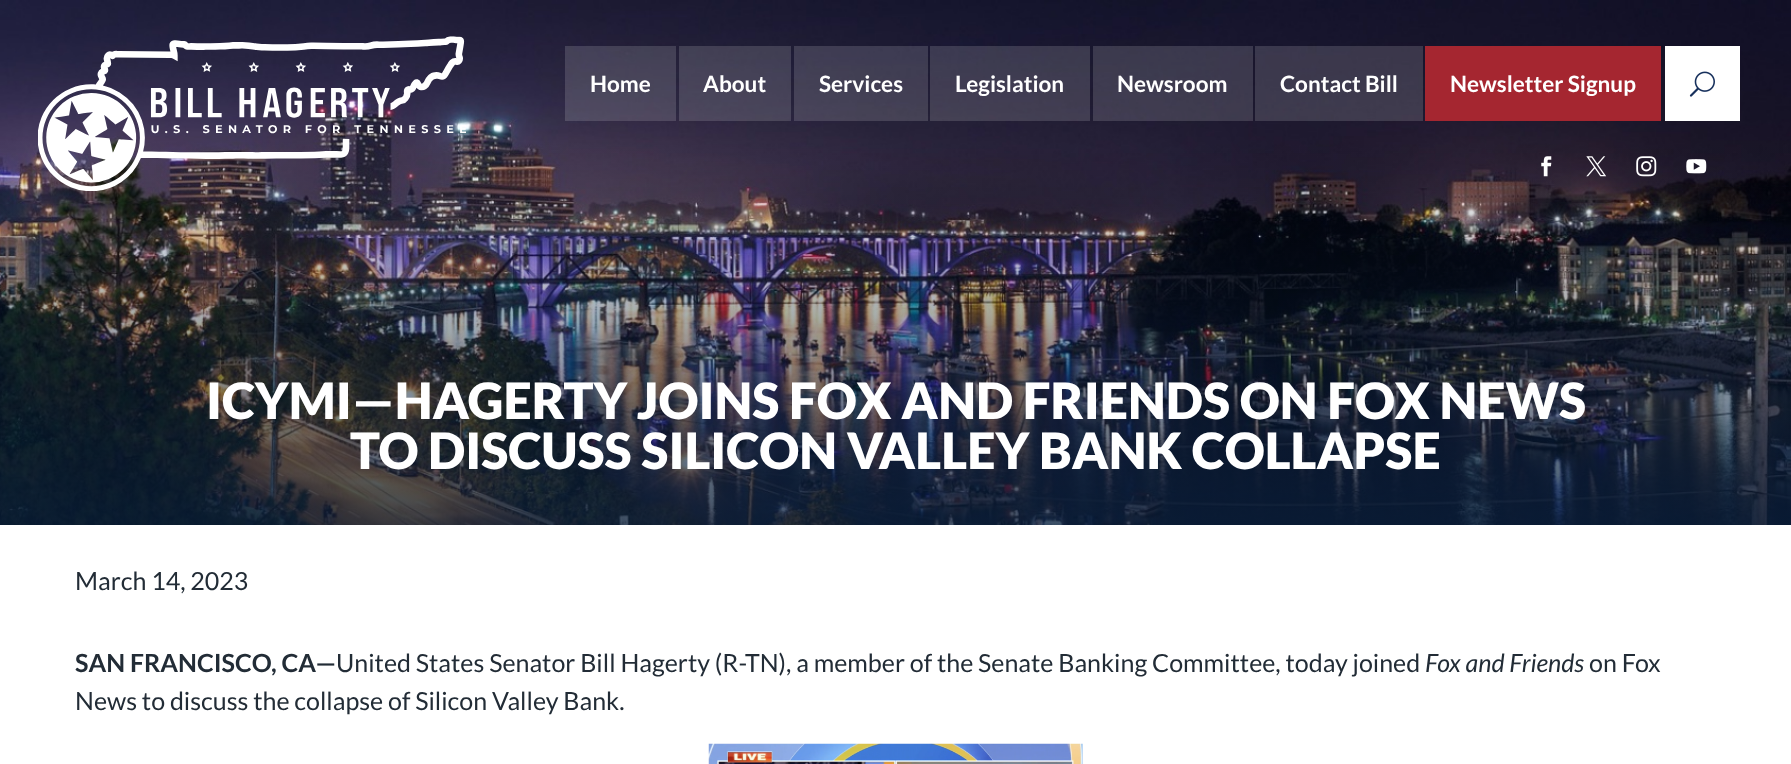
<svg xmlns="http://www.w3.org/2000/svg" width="1791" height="764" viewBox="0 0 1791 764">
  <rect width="100%" height="100%" fill="rgb(255,255,255)"/>
  <image x="0" y="0" width="1791" height="525" href="pic7.png"/>
  <image x="38" y="36" width="428" height="155" href="pic1.png"/>
  <rect x="565" y="46" width="111" height="75" fill="rgba(255,255,255,0.15)"/>
  <text x="590" y="92" font-family="Lato" font-size="22.5" font-weight="bold" fill="rgb(255,255,255)">Home</text>
  <rect x="679" y="46" width="112" height="75" fill="rgba(255,255,255,0.15)"/>
  <text x="703" y="92" font-family="Lato" font-size="22.5" font-weight="bold" fill="rgb(255,255,255)">About</text>
  <rect x="794" y="46" width="134" height="75" fill="rgba(255,255,255,0.15)"/>
  <text x="819" y="92" font-family="Lato" font-size="22.5" font-weight="bold" fill="rgb(255,255,255)">Services</text>
  <rect x="930" y="46" width="160" height="75" fill="rgba(255,255,255,0.15)"/>
  <text x="955" y="92" font-family="Lato" font-size="22.5" font-weight="bold" fill="rgb(255,255,255)">Legislation</text>
  <rect x="1093" y="46" width="160" height="75" fill="rgba(255,255,255,0.15)"/>
  <text x="1117" y="92" font-family="Lato" font-size="22.5" font-weight="bold" fill="rgb(255,255,255)">Newsroom</text>
  <rect x="1255" y="46" width="168" height="75" fill="rgba(255,255,255,0.15)"/>
  <text x="1280" y="92" font-family="Lato" font-size="22.5" font-weight="bold" fill="rgb(255,255,255)">Contact Bill</text>
  <rect x="1425" y="46" width="236" height="75" fill="rgb(165,38,48)"/>
  <text x="1450" y="92" font-family="Lato" font-size="22.5" font-weight="bold" fill="rgb(255,255,255)">Newsletter Signup</text>
  <rect x="1665" y="46" width="75" height="75" fill="rgb(255,255,255)"/>
  <image x="1689" y="71" width="26" height="26" href="pic2.png"/>
  <image x="1541" y="156" width="11" height="21" href="pic3.png"/>
  <image x="1586" y="156" width="21" height="21" href="pic4.png"/>
  <image x="1636" y="156" width="21" height="21" href="pic5.png"/>
  <image x="1686" y="159" width="21" height="15" href="pic6.png"/>
  <g font-family="Lato" font-size="50" font-weight="900" fill="rgb(255,255,255)">
    <text x="206" y="419">ICYMI—HAGERTY JOINS FOX AND FRIENDS ON FOX NEWS</text>
    <text x="350" y="469">TO DISCUSS SILICON VALLEY BANK COLLAPSE</text>
  </g>
  <text x="75" y="590" font-family="Lato" font-size="25" fill="rgb(34,44,54)">March 14, 2023</text>
  <text x="75" y="672" font-family="Lato" font-size="25" font-weight="bold" fill="rgb(34,44,54)">SAN FRANCISCO, CA—</text>
  <text x="336" y="672" font-family="Lato" font-size="25" fill="rgb(34,44,54)">United States Senator Bill Hagerty (R-TN), a member of the Senate Banking Committee, today joined</text>
  <text x="1425" y="672" font-family="Lato" font-size="25" font-style="italic" fill="rgb(34,44,54)">Fox and Friends</text>
  <g font-family="Lato" font-size="25" fill="rgb(34,44,54)">
    <text x="1589" y="672">on Fox</text>
    <text x="75" y="710">News to discuss the collapse of Silicon Valley Bank.</text>
  </g>
  <image x="708" y="743" width="375" height="21" href="pic8.png"/>
</svg>
